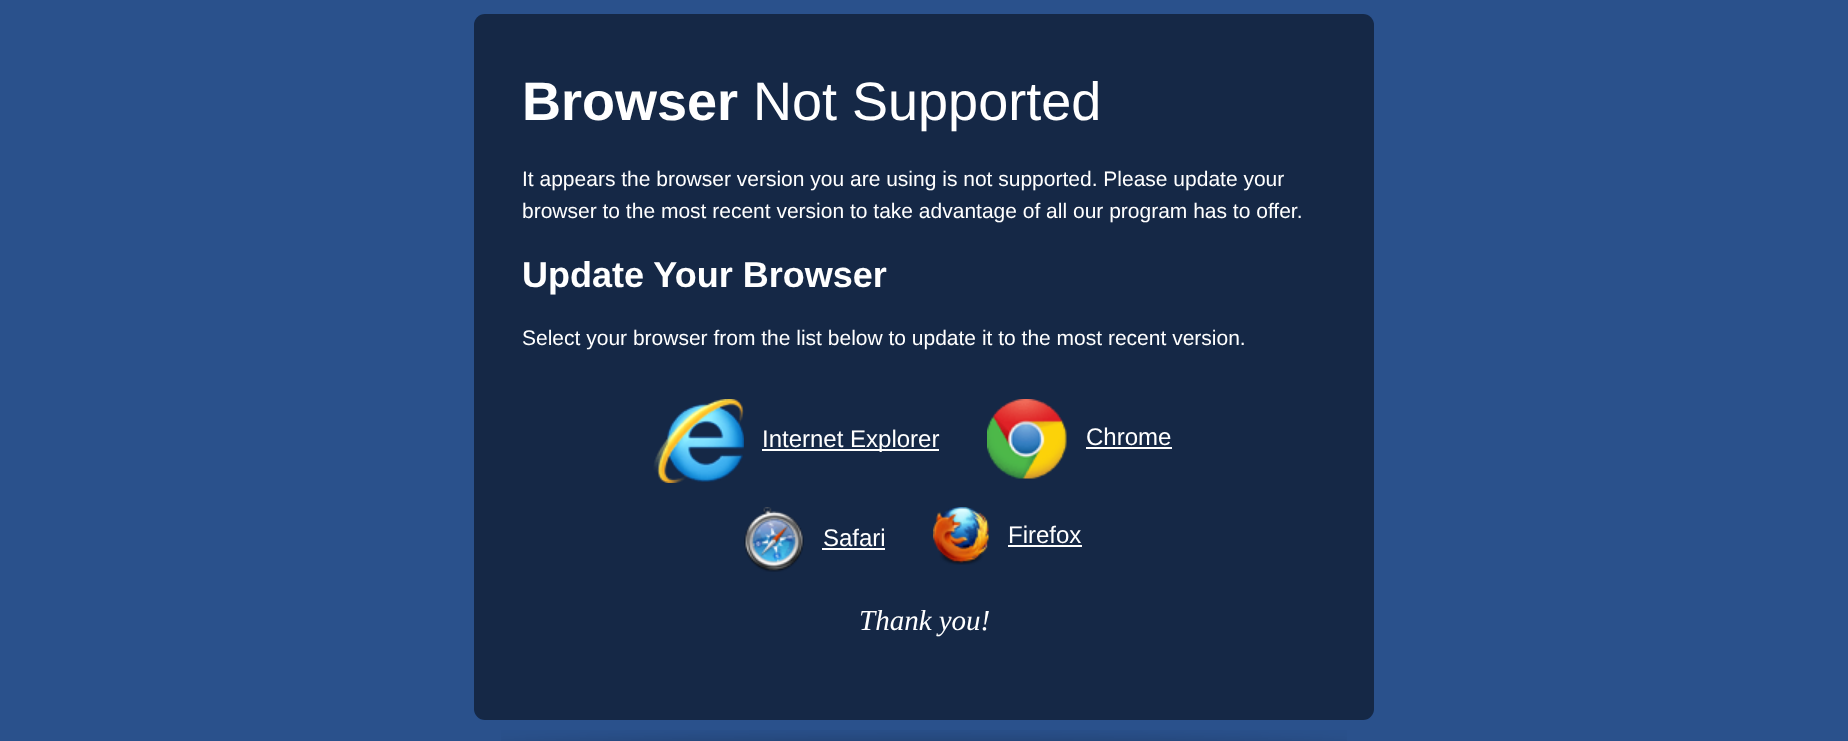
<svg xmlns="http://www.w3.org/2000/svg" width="1848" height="741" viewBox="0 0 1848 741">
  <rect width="100%" height="100%" fill="rgb(42,81,140)"/>
  <rect x="474" y="14" width="900" height="706" rx="11" fill="rgb(21,40,70)"/>
  <text x="522" y="120" font-family="Liberation Sans" font-size="54" font-weight="bold" fill="rgb(255,255,255)">Browser</text>
  <text x="753" y="120" font-family="Liberation Sans" font-size="54" fill="rgb(255,255,255)">Not Supported</text>
  <g font-family="Liberation Sans" font-size="21" fill="rgb(255,255,255)">
    <text>
      <tspan x="522" y="186">It appears the browser version you are using is not supported. Please update your</tspan>
      <tspan x="522" y="218">browser to the most recent version to take advantage of all our program has to offer.</tspan>
    </text>
  </g>
  <text x="522" y="287" font-family="Liberation Sans" font-size="36" font-weight="bold" fill="rgb(255,255,255)">Update Your Browser</text>
  <text x="522" y="345" font-family="Liberation Sans" font-size="21" fill="rgb(255,255,255)">Select your browser from the list below to update it to the most recent version.</text>
  <image x="653" y="399" width="91" height="84" href="pic1.png"/>
  <rect x="762" y="449" width="177" height="2" fill="rgb(255,255,255)"/>
  <text x="762" y="447" font-family="Liberation Sans" font-size="24" fill="rgb(255,255,255)">Internet Explorer</text>
  <image x="987" y="399" width="80" height="80" href="pic2.png"/>
  <text x="1086" y="445" font-family="Liberation Sans" font-size="24" fill="rgb(255,255,255)">Chrome</text>
  <rect x="1086" y="447" width="86" height="2" fill="rgb(255,255,255)"/>
  <image x="744" y="507" width="60" height="65" href="pic3.png"/>
  <text x="823" y="546" font-family="Liberation Sans" font-size="24" fill="rgb(255,255,255)">Safari</text>
  <rect x="822" y="548" width="63" height="2" fill="rgb(255,255,255)"/>
  <image x="933" y="507" width="56" height="58" href="pic4.png"/>
  <text x="1008" y="543" font-family="Liberation Sans" font-size="24" fill="rgb(255,255,255)">Firefox</text>
  <rect x="1008" y="545" width="74" height="2" fill="rgb(255,255,255)"/>
  <text x="859" y="630" font-family="Liberation Serif" font-size="29" font-style="italic" fill="rgb(255,255,255)">Thank you!</text>
  <image x="501" y="730" width="846" height="11" href="pic5.png"/>
</svg>
